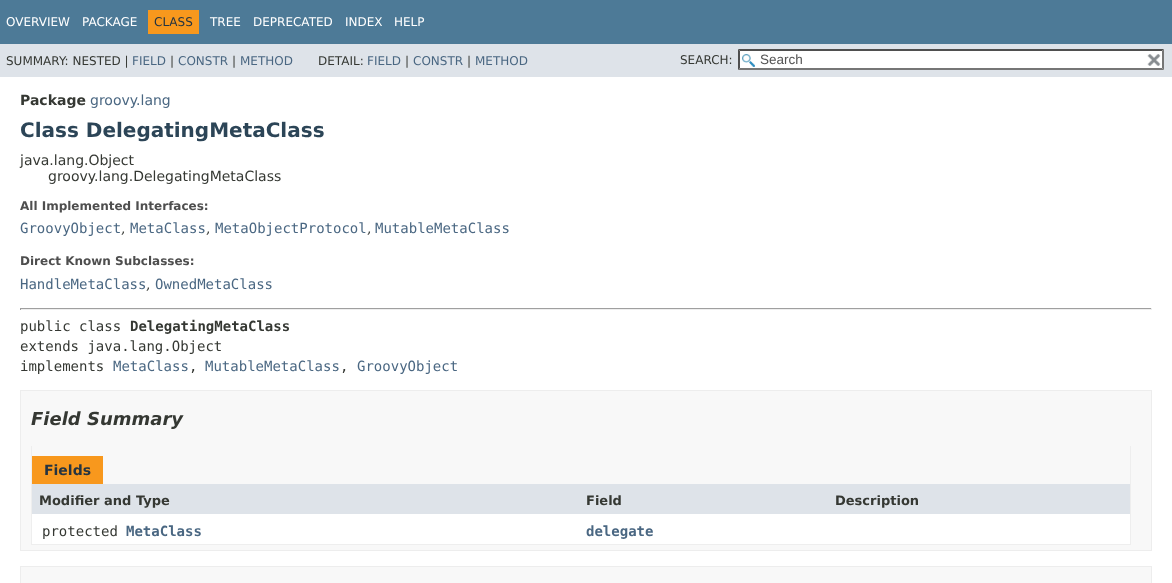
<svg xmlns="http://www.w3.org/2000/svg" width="1172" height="583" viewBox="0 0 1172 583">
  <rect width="100%" height="100%" fill="rgb(255,255,255)"/>
  <rect x="0" y="0" width="1172" height="44" fill="rgb(77,122,151)"/>
  <g font-family="DejaVu Sans" font-size="12" fill="rgb(255,255,255)">
    <text x="6" y="26">OVERVIEW</text>
    <text x="82" y="26">PACKAGE</text>
  </g>
  <rect x="148" y="10" width="51" height="24" fill="rgb(248,152,29)"/>
  <text x="154" y="26" font-family="DejaVu Sans" font-size="12" fill="rgb(37,52,65)">CLASS</text>
  <g font-family="DejaVu Sans" font-size="12" fill="rgb(255,255,255)">
    <text x="210" y="26">TREE</text>
    <text x="253" y="26">DEPRECATED</text>
    <text x="345" y="26">INDEX</text>
    <text x="394" y="26">HELP</text>
  </g>
  <rect x="0" y="44" width="1172" height="33" fill="rgb(222,227,233)"/>
  <text x="6" y="65" font-family="DejaVu Sans" font-size="12" fill="rgb(53,56,51)">SUMMARY: NESTED |</text>
  <text x="132" y="65" font-family="DejaVu Sans" font-size="12" fill="rgb(74,103,130)">FIELD</text>
  <text x="170" y="65" font-family="DejaVu Sans" font-size="12" fill="rgb(53,56,51)">|</text>
  <text x="178" y="65" font-family="DejaVu Sans" font-size="12" fill="rgb(74,103,130)">CONSTR</text>
  <text x="232" y="65" font-family="DejaVu Sans" font-size="12" fill="rgb(53,56,51)">|</text>
  <text x="240" y="65" font-family="DejaVu Sans" font-size="12" fill="rgb(74,103,130)">METHOD</text>
  <text x="318" y="65" font-family="DejaVu Sans" font-size="12" fill="rgb(53,56,51)">DETAIL:</text>
  <text x="367" y="65" font-family="DejaVu Sans" font-size="12" fill="rgb(74,103,130)">FIELD</text>
  <text x="405" y="65" font-family="DejaVu Sans" font-size="12" fill="rgb(53,56,51)">|</text>
  <text x="413" y="65" font-family="DejaVu Sans" font-size="12" fill="rgb(74,103,130)">CONSTR</text>
  <text x="467" y="65" font-family="DejaVu Sans" font-size="12" fill="rgb(53,56,51)">|</text>
  <text x="475" y="65" font-family="DejaVu Sans" font-size="12" fill="rgb(74,103,130)">METHOD</text>
  <text x="680" y="64" font-family="DejaVu Sans" font-size="12" fill="rgb(53,56,51)">SEARCH:</text>
  <rect x="738" y="49" width="426" height="21" fill="rgb(255,255,255)"/>
  <image x="742" y="54" width="13" height="13" href="pic1.png"/>
  <path d="M738 49H1164L1162 51H740Z" fill="rgb(79,79,79)"/>
  <path d="M1164 49V70L1162 68V51Z" fill="rgb(118,118,118)"/>
  <path d="M1164 70H738L740 68H1162Z" fill="rgb(118,118,118)"/>
  <path d="M738 70V49L740 51V68Z" fill="rgb(79,79,79)"/>
  <text x="760" y="64" font-family="Liberation Sans" font-size="13.5" fill="rgb(84,84,84)">Search</text>
  <image x="1147" y="54" width="14" height="12" href="pic2.png"/>
  <text x="20" y="105" font-family="DejaVu Sans" font-size="14" font-weight="bold" fill="rgb(53,56,51)">Package</text>
  <text x="90" y="105" font-family="DejaVu Sans" font-size="14" fill="rgb(74,103,130)">groovy.lang</text>
  <text x="20" y="137" font-family="DejaVu Sans" font-size="20" font-weight="bold" fill="rgb(44,69,87)">Class DelegatingMetaClass</text>
  <g font-family="DejaVu Sans" font-size="14" fill="rgb(53,56,51)">
    <text x="20" y="165">java.lang.Object</text>
    <text x="48" y="181">groovy.lang.DelegatingMetaClass</text>
  </g>
  <text x="20" y="210" font-family="DejaVu Sans" font-size="12" font-weight="bold" fill="rgb(78,78,78)">All Implemented Interfaces:</text>
  <text x="20" y="233" font-family="DejaVu Sans Mono" font-size="14" fill="rgb(74,103,130)">GroovyObject</text>
  <text x="121" y="233" font-family="DejaVu Serif" font-size="14" fill="rgb(53,56,51)">,</text>
  <text x="130" y="233" font-family="DejaVu Sans Mono" font-size="14" fill="rgb(74,103,130)">MetaClass</text>
  <text x="206" y="233" font-family="DejaVu Serif" font-size="14" fill="rgb(53,56,51)">,</text>
  <text x="215" y="233" font-family="DejaVu Sans Mono" font-size="14" fill="rgb(74,103,130)">MetaObjectProtocol</text>
  <text x="367" y="233" font-family="DejaVu Serif" font-size="14" fill="rgb(53,56,51)">,</text>
  <text x="375" y="233" font-family="DejaVu Sans Mono" font-size="14" fill="rgb(74,103,130)">MutableMetaClass</text>
  <text x="20" y="265" font-family="DejaVu Sans" font-size="12" font-weight="bold" fill="rgb(78,78,78)">Direct Known Subclasses:</text>
  <text x="20" y="289" font-family="DejaVu Sans Mono" font-size="14" fill="rgb(74,103,130)">HandleMetaClass</text>
  <text x="146" y="289" font-family="DejaVu Serif" font-size="14" fill="rgb(53,56,51)">,</text>
  <text x="155" y="289" font-family="DejaVu Sans Mono" font-size="14" fill="rgb(74,103,130)">OwnedMetaClass</text>
  <rect x="20" y="308" width="1132" height="1" fill="rgb(159,159,159)"/>
  <rect x="1151" y="308" width="1" height="2" fill="rgb(238,238,238)"/>
  <rect x="20" y="309" width="1132" height="1" fill="rgb(238,238,238)"/>
  <rect x="20" y="308" width="1" height="2" fill="rgb(159,159,159)"/>
  <text x="20" y="331" font-family="DejaVu Sans Mono" font-size="14" fill="rgb(53,56,51)">public class</text>
  <text x="130" y="331" font-family="DejaVu Sans Mono" font-size="14" font-weight="bold" fill="rgb(53,56,51)">DelegatingMetaClass</text>
  <g font-family="DejaVu Sans Mono" font-size="14" fill="rgb(53,56,51)">
    <text>
      <tspan x="20" y="351">extends java.lang.Object</tspan>
      <tspan x="20" y="371">implements</tspan>
    </text>
  </g>
  <text x="113" y="371" font-family="DejaVu Sans Mono" font-size="14" fill="rgb(74,103,130)">MetaClass</text>
  <text x="189" y="371" font-family="DejaVu Sans Mono" font-size="14" fill="rgb(53,56,51)">,</text>
  <text x="205" y="371" font-family="DejaVu Sans Mono" font-size="14" fill="rgb(74,103,130)">MutableMetaClass</text>
  <text x="340" y="371" font-family="DejaVu Sans Mono" font-size="14" fill="rgb(53,56,51)">,</text>
  <text x="357" y="371" font-family="DejaVu Sans Mono" font-size="14" fill="rgb(74,103,130)">GroovyObject</text>
  <rect x="20.5" y="390.5" width="1131" height="160" fill="rgb(248,248,248)" stroke="rgb(237,237,237)"/>
  <text x="31" y="425" font-family="DejaVu Sans" font-size="18" font-weight="bold" font-style="italic" fill="rgb(53,56,51)">Field Summary</text>
  <rect x="1130" y="446" width="1" height="99" fill="rgb(238,238,238)"/>
  <rect x="31" y="544" width="1100" height="1" fill="rgb(238,238,238)"/>
  <rect x="31" y="446" width="1" height="99" fill="rgb(238,238,238)"/>
  <rect x="32" y="456" width="71" height="28" fill="rgb(248,152,29)"/>
  <text x="44" y="475" font-family="DejaVu Sans" font-size="14" font-weight="bold" fill="rgb(37,52,65)">Fields</text>
  <rect x="32" y="484" width="1098" height="30" fill="rgb(222,227,233)"/>
  <g font-family="DejaVu Sans" font-size="13" font-weight="bold" fill="rgb(53,56,51)">
    <text x="39" y="505">Modifier and Type</text>
    <text x="586" y="505">Field</text>
    <text x="835" y="505">Description</text>
  </g>
  <rect x="32" y="514" width="1098" height="30" fill="rgb(255,255,255)"/>
  <text x="42" y="536" font-family="DejaVu Sans Mono" font-size="14" fill="rgb(53,56,51)">protected</text>
  <g font-family="DejaVu Sans Mono" font-size="14" font-weight="bold" fill="rgb(74,103,130)">
    <text x="126" y="536">MetaClass</text>
    <text x="586" y="536">delegate</text>
  </g>
  <rect x="20.5" y="566.5" width="1131" height="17" fill="rgb(248,248,248)" stroke="rgb(237,237,237)"/>
</svg>
